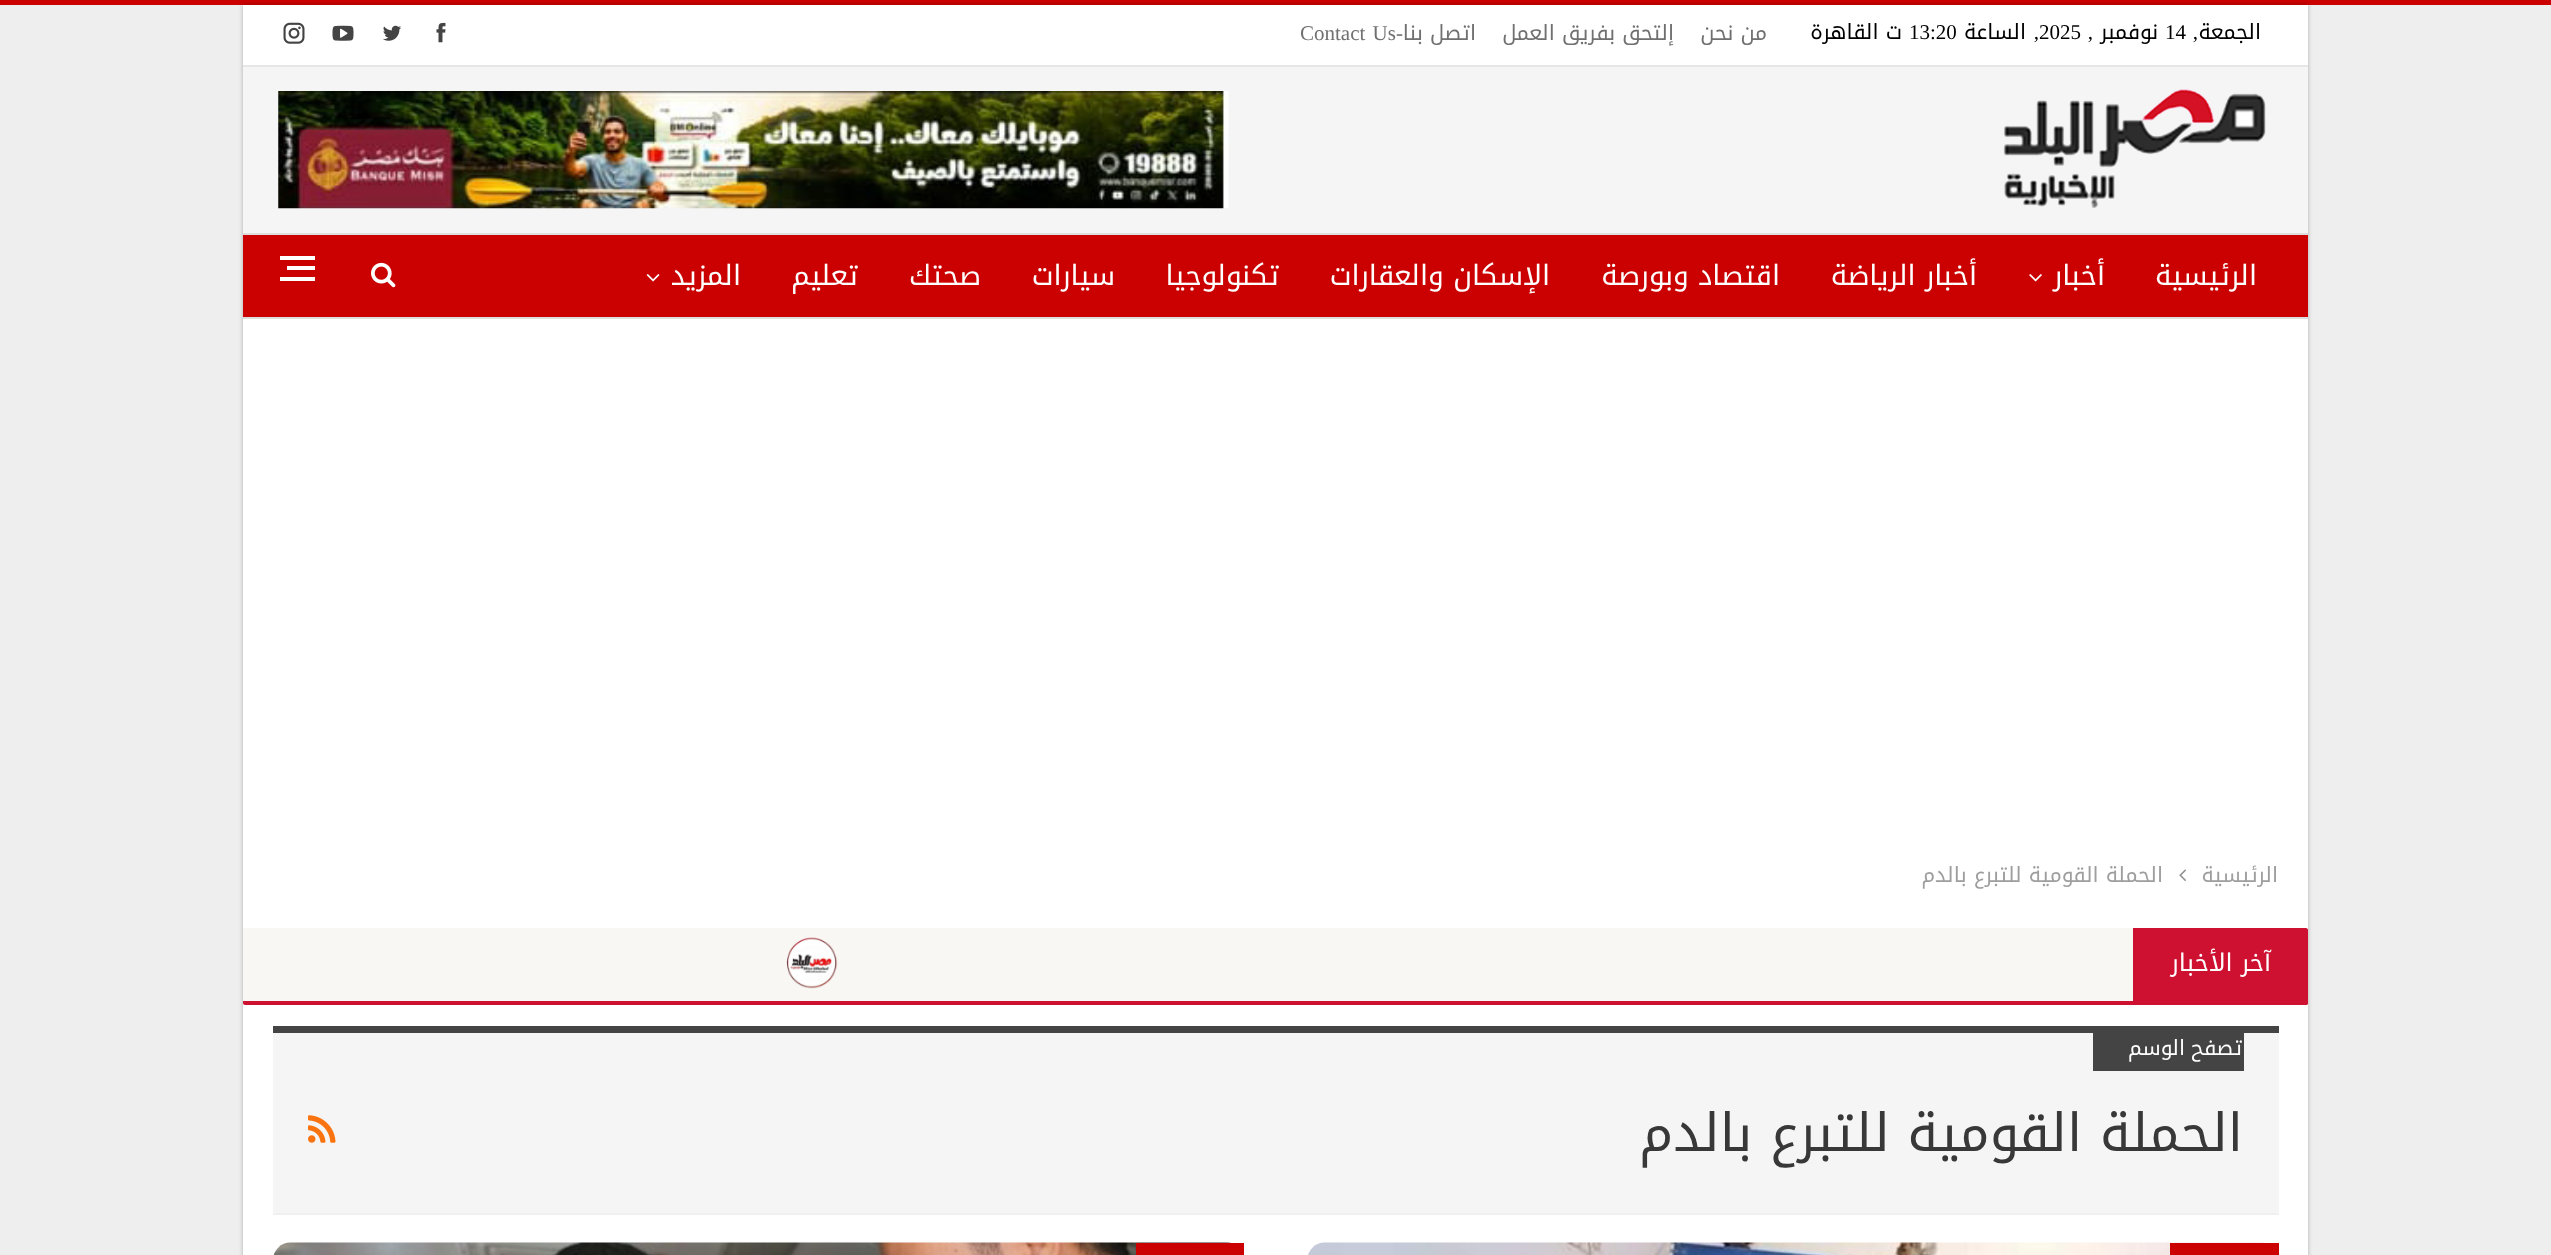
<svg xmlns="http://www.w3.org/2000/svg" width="2551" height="1255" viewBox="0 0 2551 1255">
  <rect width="100%" height="100%" fill="rgb(238,238,238)"/>
  <rect x="0" y="0" width="2551" height="5" fill="rgb(203,0,0)"/>
  <rect x="243" y="5" width="2065" height="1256" fill="rgba(0,0,0,0.27)" filter="blur(2px)"/>
  <rect x="243" y="319" width="2065" height="936" fill="rgb(255,255,255)"/>
  <rect x="243" y="67" width="2065" height="166" fill="rgb(245,245,245)"/>
  <rect x="243" y="5" width="2065" height="60" fill="rgb(255,255,255)"/>
  <rect x="243" y="65" width="2065" height="2" fill="rgb(230,230,230)"/>
  <text x="2261" y="39" font-family="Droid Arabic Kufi" font-size="21" direction="rtl" fill="rgb(0,0,0)">الجمعة</text>
  <text x="2198" y="39" font-family="Liberation Serif" font-size="21" direction="rtl" fill="rgb(0,0,0)">,</text>
  <text x="2165" y="39" font-family="Liberation Serif" font-size="21" fill="rgb(0,0,0)">14</text>
  <text x="2158" y="39" font-family="Droid Arabic Kufi" font-size="21" direction="rtl" fill="rgb(0,0,0)">نوفمبر</text>
  <text x="2093" y="39" font-family="Liberation Serif" font-size="21" direction="rtl" fill="rgb(0,0,0)">,</text>
  <text x="2039" y="39" font-family="Liberation Serif" font-size="21" fill="rgb(0,0,0)">2025</text>
  <text x="2039" y="39" font-family="Liberation Serif" font-size="21" direction="rtl" fill="rgb(0,0,0)">,</text>
  <text x="2026" y="39" font-family="Droid Arabic Kufi" font-size="21" direction="rtl" fill="rgb(0,0,0)">الساعة</text>
  <text x="1909" y="39" font-family="Liberation Serif" font-size="21" fill="rgb(0,0,0)">13:20</text>
  <text x="1902" y="39" font-family="Droid Arabic Kufi" font-size="21" direction="rtl" fill="rgb(0,0,0)">ت القاهرة</text>
  <g font-family="Droid Arabic Kufi" font-size="21" direction="rtl" fill="rgb(112,112,112)">
    <text x="1767" y="40">من نحن</text>
    <text x="1674" y="40">إلتحق بفريق العمل</text>
    <text x="1476" y="40">اتصل بنا</text>
  </g>
  <text x="1403" y="40" font-family="Liberation Serif" font-size="21" direction="rtl" fill="rgb(112,112,112)">-</text>
  <text x="1300" y="40" word-spacing="2" font-family="Liberation Serif" font-size="21" fill="rgb(112,112,112)">Contact Us</text>
  <image x="436" y="22" width="10" height="21" href="pic1.png"/>
  <image x="383" y="25" width="19" height="16" href="pic2.png"/>
  <image x="332" y="25" width="22" height="16" href="pic3.png"/>
  <image x="283" y="22" width="22" height="22" href="pic4.png"/>
  <image x="2003" y="89" width="263" height="120" href="pic5.png"/>
  <image x="278" y="91" width="951" height="118" href="pic6.png"/>
  <rect x="243" y="235" width="2065" height="82" fill="rgb(203,0,0)"/>
  <rect x="243" y="233" width="2065" height="2" fill="rgb(222,222,222)"/>
  <rect x="243" y="317" width="2065" height="2" fill="rgb(222,222,222)"/>
  <g font-family="Droid Arabic Kufi" font-size="28" direction="rtl" fill="rgb(255,255,255)">
    <text x="2257" y="285">الرئيسية</text>
    <text x="2105" y="285">أخبار</text>
  </g>
  <image x="2029" y="274" width="13" height="8" href="pic7.png"/>
  <g font-family="Droid Arabic Kufi" font-size="28" direction="rtl" fill="rgb(255,255,255)">
    <text x="1977" y="285">أخبار الرياضة</text>
    <text x="1780" y="285">اقتصاد وبورصة</text>
    <text x="1550" y="285">الإسكان والعقارات</text>
    <text x="1279" y="285">تكنولوجيا</text>
    <text x="1115" y="285">سيارات</text>
    <text x="981" y="285">صحتك</text>
    <text x="858" y="285">تعليم</text>
    <text x="741" y="285">المزيد</text>
  </g>
  <image x="646" y="274" width="14" height="8" href="pic8.png"/>
  <image x="371" y="262" width="25" height="26" href="pic9.png"/>
  <rect x="287" y="266" width="28" height="4" fill="rgb(255,255,255)"/>
  <rect x="280" y="256" width="35" height="4" fill="rgb(255,255,255)"/>
  <rect x="280" y="277" width="35" height="4" fill="rgb(255,255,255)"/>
  <text x="2278" y="882" font-family="Droid Arabic Kufi" font-size="21" direction="rtl" fill="rgb(158,158,158)">الرئيسية</text>
  <image x="2179" y="869" width="7" height="12" href="pic10.png"/>
  <text x="2163" y="882" font-family="Droid Arabic Kufi" font-size="21" direction="rtl" fill="rgb(158,158,158)">الحملة القومية للتبرع بالدم</text>
  <rect x="243" y="928" width="2065" height="77" rx="2" fill="rgb(249,247,243)"/>
  <path d="M2133 928H2306C2307 928 2308 929 2308 930V1003C2308 1004 2307 1005 2306 1005H2133Z" fill="rgb(206,16,49)"/>
  <path d="M243 1001H2308V1003C2308 1004 2307 1005 2306 1005H245C244 1005 243 1004 243 1003Z" fill="rgb(206,16,49)"/>
  <image x="786" y="937" width="52" height="52" href="pic11.png"/>
  <text x="2271" y="971" font-family="'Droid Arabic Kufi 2'" font-size="24.5" direction="rtl" fill="rgb(255,255,255)">آخر الأخبار</text>
  <rect x="273" y="1033" width="2006" height="180" fill="rgb(245,245,245)"/>
  <rect x="273" y="1213" width="2006" height="2" fill="rgb(240,240,240)"/>
  <rect x="273" y="1026" width="2006" height="7" fill="rgb(68,68,68)"/>
  <rect x="2093" y="1033" width="151" height="38" fill="rgb(68,68,68)"/>
  <text x="2242" y="1055" word-spacing="-1" font-family="Droid Arabic Kufi" font-size="21" letter-spacing="1.75" direction="rtl" fill="rgb(255,255,255)">تصفح الوسم</text>
  <text x="2243" y="1151" font-family="Droid Arabic Kufi" font-size="52.5" direction="rtl" fill="rgb(56,56,56)">الحملة القومية للتبرع بالدم</text>
  <image x="308" y="1115" width="28" height="28" href="pic12.png"/>
  <image x="1308" y="1242" width="957" height="13" href="pic13.png"/>
  <rect x="2170" y="1243" width="109" height="12" fill="rgb(203,0,0)"/>
  <image x="273" y="1242" width="958" height="13" href="pic14.png"/>
  <rect x="1136" y="1243" width="108" height="12" fill="rgb(203,0,0)"/>
</svg>
